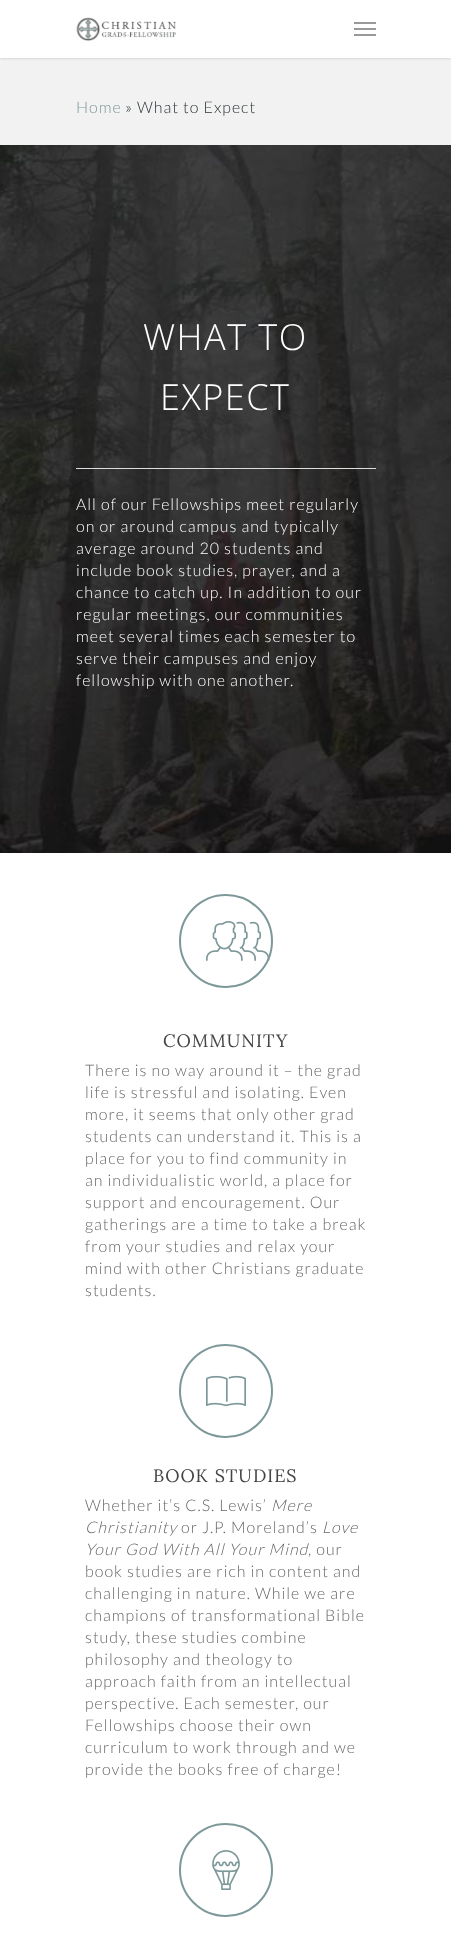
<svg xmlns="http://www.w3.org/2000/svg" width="451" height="1946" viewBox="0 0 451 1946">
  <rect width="100%" height="100%" fill="rgb(242,242,242)"/>
  <rect x="0" y="0" width="451" height="58" fill="rgba(0,0,0,0.22)" filter="blur(1.5px)"/>
  <rect x="0" y="0" width="451" height="58" fill="rgb(255,255,255)"/>
  <image x="76" y="17" width="100" height="24" href="pic1.png"/>
  <rect x="354" y="22" width="22" height="2" fill="rgb(153,153,153)"/>
  <rect x="354" y="34" width="22" height="2" fill="rgb(153,153,153)"/>
  <rect x="354" y="28" width="22" height="2" fill="rgb(153,153,153)"/>
  <text x="76" y="113" font-family="Lato" font-size="16" font-weight="300" letter-spacing="1" fill="rgb(125,152,153)">Home</text>
  <text x="125" y="113" font-family="Lato" font-size="16" font-weight="300" letter-spacing="1" fill="rgb(43,50,53)">» What to Expect</text>
  <image x="0" y="145" width="451" height="708" href="pic2.png"/>
  <rect x="76" y="468" width="300" height="1" fill="rgb(221,221,221)"/>
  <g font-family="Open Sans" font-size="36" font-weight="300" letter-spacing="1.5" fill="rgb(255,255,255)">
    <text x="143" y="350">WHAT TO</text>
    <text x="160" y="410">EXPECT</text>
  </g>
  <g font-family="Lato" font-size="16" font-weight="300" letter-spacing="1" fill="rgb(255,255,255)">
    <text>
      <tspan x="76" y="510">All of our Fellowships meet regularly</tspan>
      <tspan x="76" y="532">on or around campus and typically</tspan>
      <tspan x="76" y="554">average around 20 students and</tspan>
      <tspan x="76" y="576">include book studies, prayer, and a</tspan>
      <tspan x="76" y="598">chance to catch up. In addition to our</tspan>
      <tspan x="76" y="620">regular meetings, our communities</tspan>
      <tspan x="76" y="642">meet several times each semester to</tspan>
      <tspan x="76" y="664">serve their campuses and enjoy</tspan>
      <tspan x="76" y="686">fellowship with one another.</tspan>
    </text>
  </g>
  <rect x="0" y="853" width="451" height="1093" fill="rgb(255,255,255)"/>
  <circle cx="226" cy="941" r="46" fill="none" stroke="rgb(125,152,153)" stroke-width="2"/>
  <image x="206" y="921" width="64" height="40" href="pic3.png"/>
  <text x="163" y="1047" font-family="Lora" font-size="18" letter-spacing="1" fill="rgb(68,68,68)">COMMUNITY</text>
  <g font-family="Lato" font-size="16" font-weight="300" letter-spacing="1" fill="rgb(103,103,103)">
    <text>
      <tspan x="85" y="1076">There is no way around it – the grad</tspan>
      <tspan x="85" y="1098">life is stressful and isolating. Even</tspan>
      <tspan x="85" y="1120">more, it seems that only other grad</tspan>
      <tspan x="85" y="1142">students can understand it. This is a</tspan>
      <tspan x="85" y="1164">place for you to find community in</tspan>
      <tspan x="85" y="1186">an individualistic world, a place for</tspan>
      <tspan x="85" y="1208">support and encouragement. Our</tspan>
      <tspan x="85" y="1230">gatherings are a time to take a break</tspan>
      <tspan x="85" y="1252">from your studies and relax your</tspan>
      <tspan x="85" y="1274">mind with other Christians graduate</tspan>
      <tspan x="85" y="1296">students.</tspan>
    </text>
  </g>
  <circle cx="226" cy="1391" r="46" fill="none" stroke="rgb(125,152,153)" stroke-width="2"/>
  <image x="206" y="1375" width="40" height="32" href="pic4.png"/>
  <text x="153" y="1482" font-family="Lora" font-size="18" letter-spacing="1" fill="rgb(68,68,68)">BOOK STUDIES</text>
  <text x="85" y="1511" font-family="Lato" font-size="16" font-weight="300" letter-spacing="1" fill="rgb(103,103,103)">Whether it’s C.S. Lewis’</text>
  <g font-family="Lato" font-size="16" font-weight="300" font-style="italic" letter-spacing="1" fill="rgb(103,103,103)">
    <text x="271" y="1511">Mere</text>
    <text x="85" y="1533">Christianity</text>
  </g>
  <text x="181" y="1533" font-family="Lato" font-size="16" font-weight="300" letter-spacing="1" fill="rgb(103,103,103)">or J.P. Moreland’s</text>
  <g font-family="Lato" font-size="16" font-weight="300" font-style="italic" letter-spacing="1" fill="rgb(103,103,103)">
    <text x="322" y="1533">Love</text>
    <text x="85" y="1555">Your God With All Your Mind</text>
  </g>
  <g font-family="Lato" font-size="16" font-weight="300" letter-spacing="1" fill="rgb(103,103,103)">
    <text x="308" y="1555">, our</text>
    <text>
      <tspan x="85" y="1577">book studies are rich in content and</tspan>
      <tspan x="85" y="1599">challenging in nature. While we are</tspan>
      <tspan x="85" y="1621">champions of transformational Bible</tspan>
      <tspan x="85" y="1643">study, these studies combine</tspan>
      <tspan x="85" y="1665">philosophy and theology to</tspan>
      <tspan x="85" y="1687">approach faith from an intellectual</tspan>
      <tspan x="85" y="1709">perspective. Each semester, our</tspan>
      <tspan x="85" y="1731">Fellowships choose their own</tspan>
      <tspan x="85" y="1753">curriculum to work through and we</tspan>
      <tspan x="85" y="1775">provide the books free of charge!</tspan>
    </text>
  </g>
  <circle cx="226" cy="1870" r="46" fill="none" stroke="rgb(125,152,153)" stroke-width="2"/>
  <image x="212" y="1850" width="28" height="40" href="pic5.png"/>
</svg>
